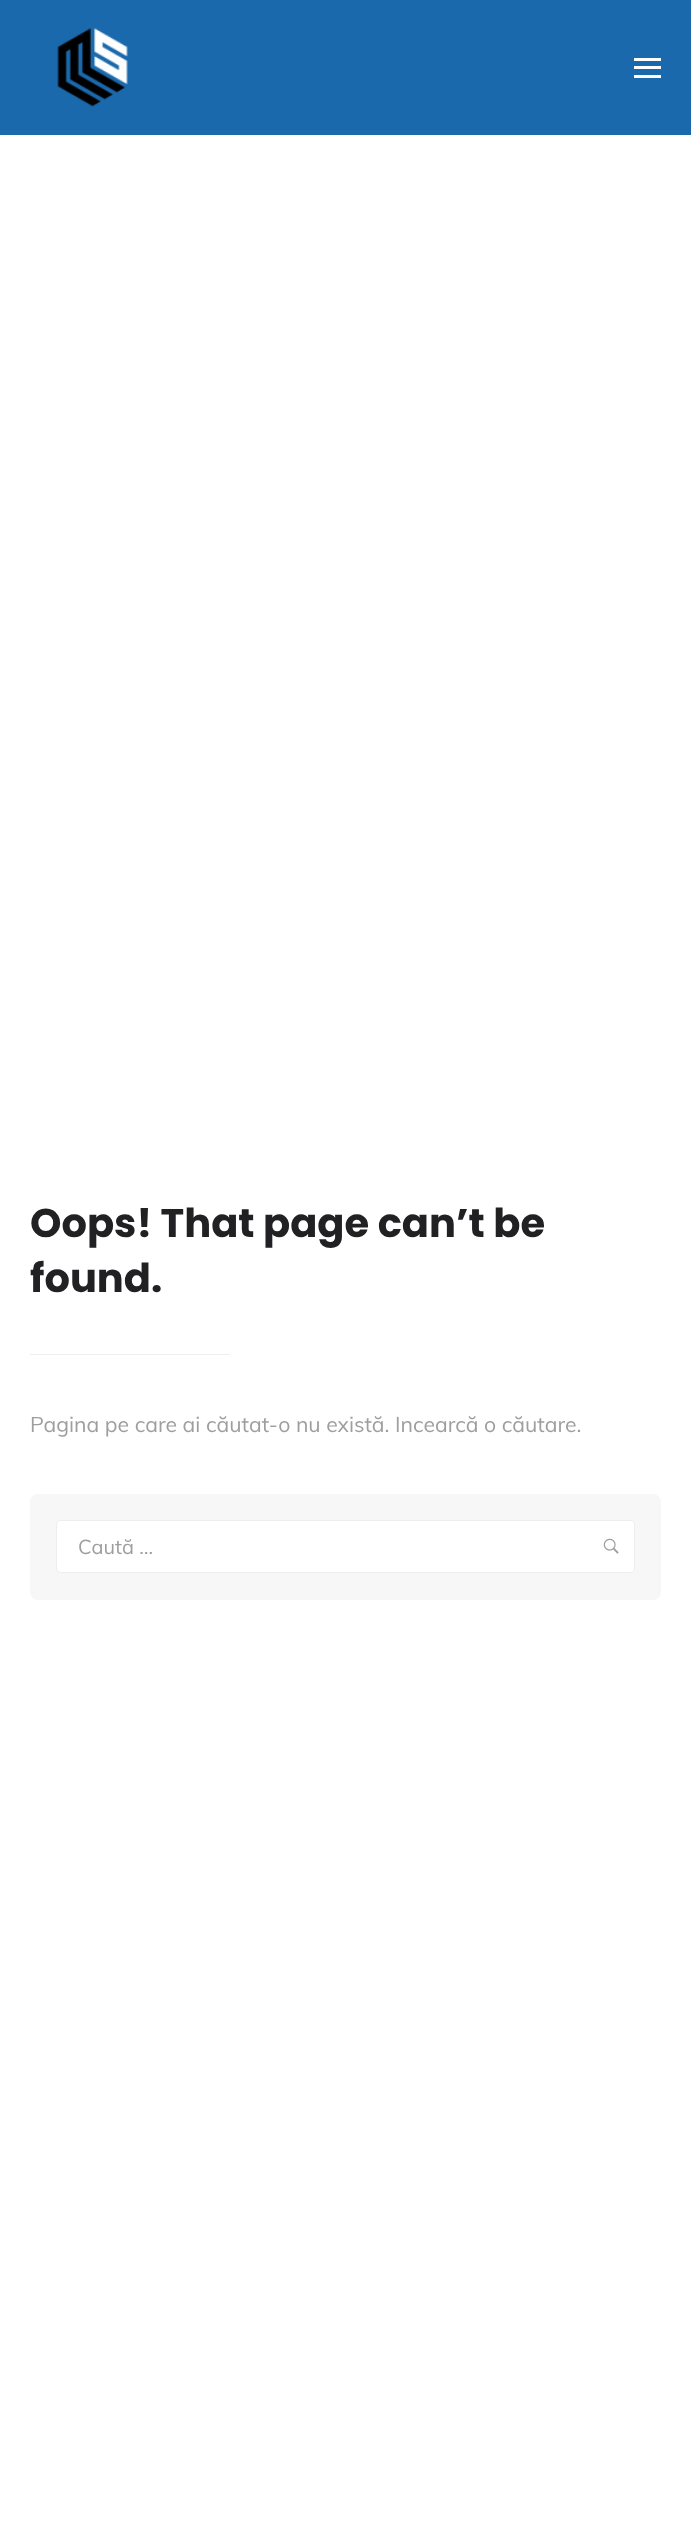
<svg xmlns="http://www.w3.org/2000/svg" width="691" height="2525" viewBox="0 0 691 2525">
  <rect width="100%" height="100%" fill="rgb(255,255,255)"/>
  <rect x="0" y="0" width="691" height="135" fill="rgb(27,105,173)"/>
  <image x="57" y="28" width="71" height="79" href="pic1.png"/>
  <rect x="634" y="58" width="27" height="3" fill="rgb(255,255,255)"/>
  <rect x="634" y="66" width="27" height="3" fill="rgb(255,255,255)"/>
  <rect x="634" y="75" width="27" height="3" fill="rgb(255,255,255)"/>
  <g font-family="Poppins" font-size="40" font-weight="bold" fill="rgb(33,33,35)">
    <text>
      <tspan x="30" y="1237">Oops! That page can’t be</tspan>
      <tspan x="30" y="1292">found.</tspan>
    </text>
  </g>
  <rect x="30" y="1354" width="200" height="1" fill="rgb(238,238,239)"/>
  <text x="30" y="1432" font-family="Muli" font-size="21.25" fill="rgb(158,158,159)">Pagina pe care ai căutat-o nu există. Incearcă o căutare.</text>
  <rect x="30" y="1494" width="631" height="106" rx="8" fill="rgb(247,247,248)"/>
  <rect x="56" y="1520" width="579" height="53" rx="4" fill="rgb(255,255,255)"/>
  <rect x="56.5" y="1520.5" width="578" height="52" rx="3.5" fill="none" stroke="rgba(0,0,20,0.07)"/>
  <text x="78" y="1554" font-family="Muli" font-size="20" fill="rgb(158,158,159)">Caută …</text>
  <image x="603" y="1538" width="16" height="16" href="pic2.png"/>
</svg>
